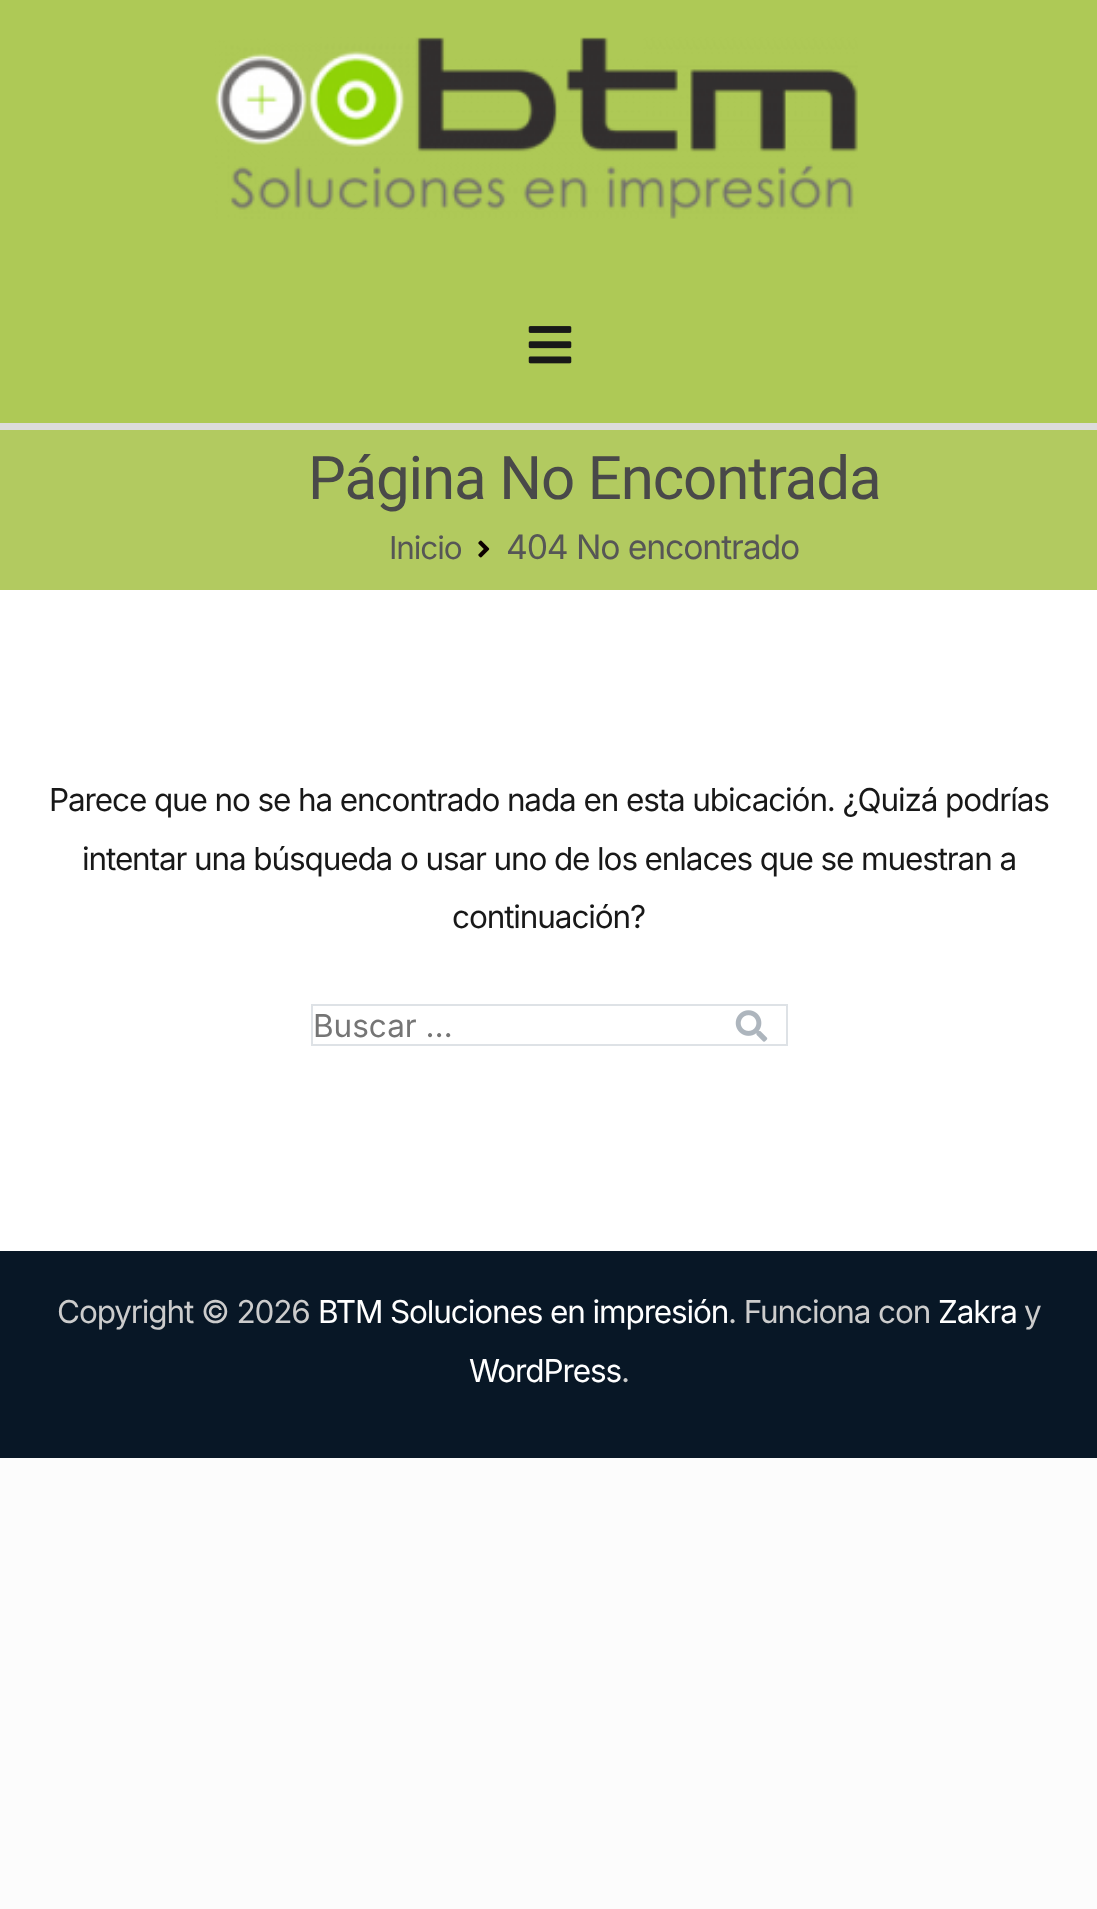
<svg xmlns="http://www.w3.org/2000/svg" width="1097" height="1909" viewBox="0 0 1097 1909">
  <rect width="100%" height="100%" fill="rgb(252,252,252)"/>
  <rect x="0" y="590" width="1097" height="661" fill="rgb(255,255,255)"/>
  <rect x="0" y="0" width="1097" height="423" fill="rgb(174,201,86)"/>
  <rect x="0" y="423" width="1097" height="7" fill="rgb(220,220,220)"/>
  <image x="215" y="37" width="643" height="182" href="pic1.png"/>
  <image x="528" y="326" width="44" height="38" href="pic2.png"/>
  <rect x="0" y="430" width="1097" height="160" fill="rgb(178,202,96)"/>
  <text x="308" y="499" font-family="Roboto" font-size="60" letter-spacing="-1.12" fill="rgb(73,73,73)">Página No Encontrada</text>
  <text x="389" y="559" font-family="Inter" font-size="31.5" letter-spacing="-1.12" fill="rgb(86,86,86)">Inicio</text>
  <image x="478" y="540" width="12" height="18" href="pic3.png"/>
  <text x="506" y="559" font-family="Inter" font-size="33.75" letter-spacing="-1.12" fill="rgb(86,86,86)">404 No encontrado</text>
  <g font-family="Inter" font-size="31.5" letter-spacing="-1.12" fill="rgb(24,24,24)">
    <text x="49" y="811">Parece que no se ha encontrado nada en esta ubicación. ¿Quizá podrías</text>
    <text x="82" y="870">intentar una búsqueda o usar uno de los enlaces que se muestran a</text>
    <text x="452" y="928">continuación?</text>
  </g>
  <rect x="312" y="1005" width="475" height="40" fill="none" stroke="rgb(222,226,230)" stroke-width="2"/>
  <text x="313" y="1037" font-family="Inter" font-size="31.5" fill="rgb(117,117,117)">Buscar …</text>
  <image x="735" y="1010" width="33" height="32" href="pic4.png"/>
  <rect x="0" y="1251" width="1097" height="207" fill="rgb(8,23,38)"/>
  <text x="57" y="1323" font-family="Inter" font-size="31.5" letter-spacing="-1.12" fill="rgb(204,204,204)">Copyright © 2026</text>
  <text x="318" y="1323" font-family="Inter" font-size="31.5" letter-spacing="-1.12" fill="rgb(255,255,255)">BTM Soluciones en impresión</text>
  <text x="728" y="1323" font-family="Inter" font-size="31.5" letter-spacing="-1.12" fill="rgb(204,204,204)">. Funciona con</text>
  <text x="938" y="1323" font-family="Inter" font-size="31.5" letter-spacing="-1.12" fill="rgb(255,255,255)">Zakra</text>
  <text x="1024" y="1323" font-family="Inter" font-size="31.5" letter-spacing="-1.12" fill="rgb(204,204,204)">y</text>
  <text x="469" y="1382" font-family="Inter" font-size="31.5" letter-spacing="-1.12" fill="rgb(255,255,255)">WordPress</text>
  <text x="621" y="1382" font-family="Inter" font-size="31.5" letter-spacing="-1.12" fill="rgb(204,204,204)">.</text>
</svg>
